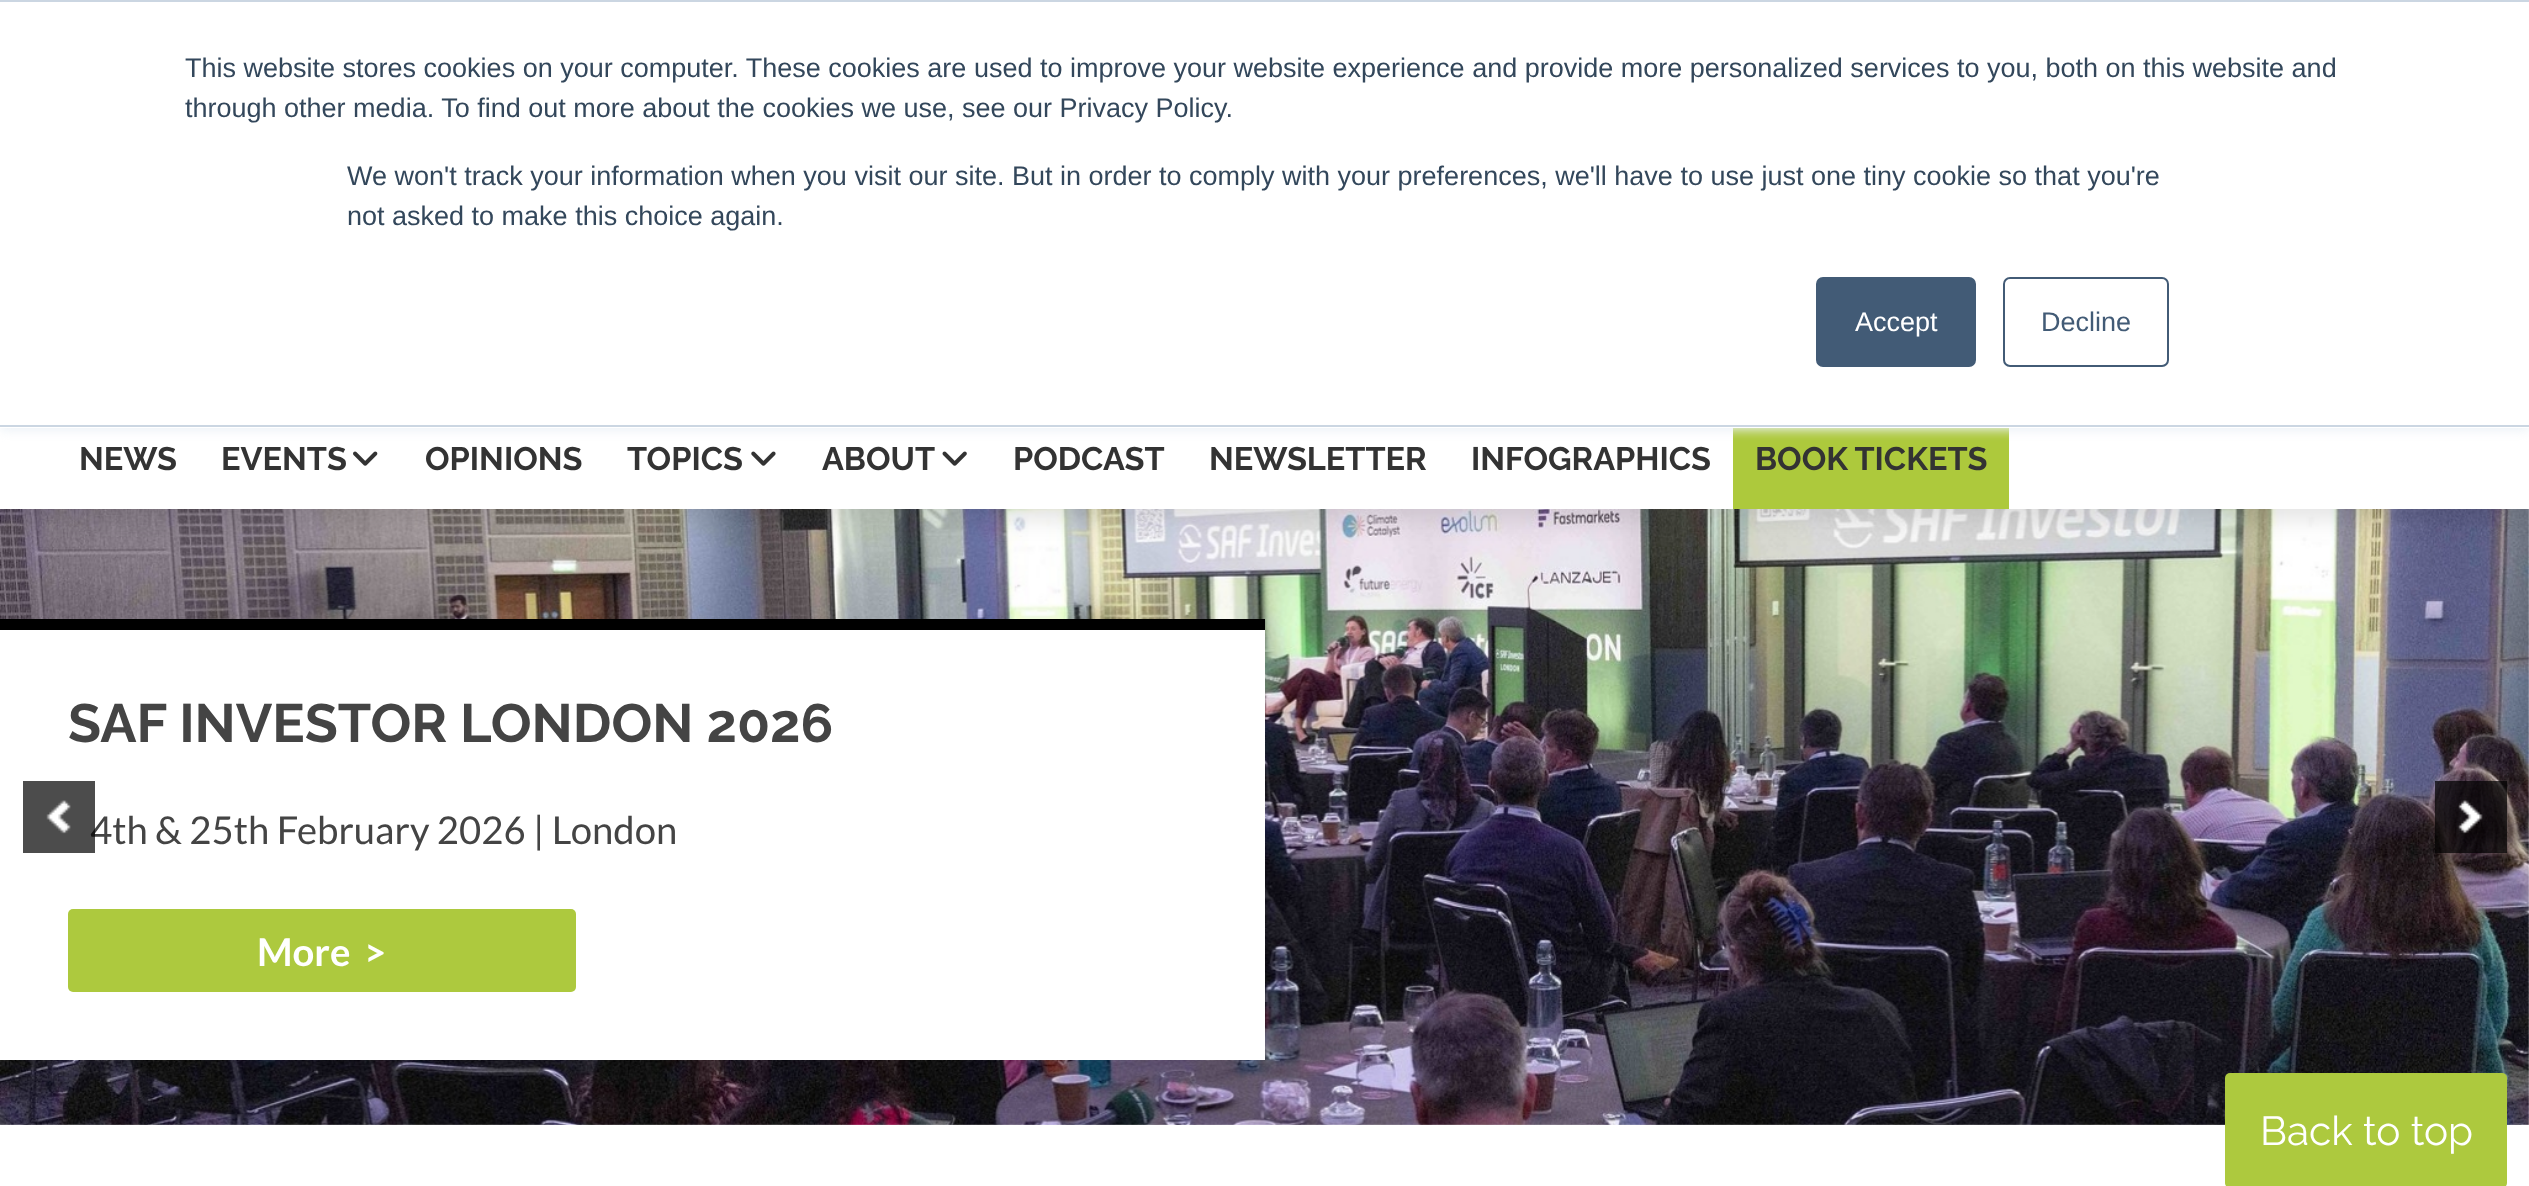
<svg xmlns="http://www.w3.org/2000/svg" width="2529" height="1186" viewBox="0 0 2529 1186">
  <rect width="100%" height="100%" fill="rgb(255,255,255)"/>
  <image x="0" y="509" width="2529" height="616" href="pic4.png"/>
  <rect x="0" y="189" width="2529" height="331" fill="rgba(0,0,0,0.1)" filter="blur(11px)"/>
  <rect x="0" y="428" width="2529" height="81" fill="rgb(255,255,255)"/>
  <rect x="1733" y="428" width="276" height="81" fill="rgb(173,201,60)"/>
  <rect x="0" y="2" width="2529" height="428" fill="rgb(234,240,246)" filter="blur(5.5px)"/>
  <rect x="0" y="2" width="2529" height="426" fill="rgb(255,255,255)"/>
  <rect x="0" y="0" width="2529" height="2" fill="rgb(203,214,226)"/>
  <rect x="0" y="425" width="2529" height="2" fill="rgb(203,214,226)"/>
  <g font-family="Liberation Sans" font-size="27" fill="rgb(51,71,91)">
    <text>
      <tspan x="185" y="77">This website stores cookies on your computer. These cookies are used to improve your website experience and provide more personalized services to you, both on this website and</tspan>
      <tspan x="185" y="117">through other media. To find out more about the cookies we use, see our Privacy Policy.</tspan>
    </text>
    <text>
      <tspan x="347" y="185">We won't track your information when you visit our site. But in order to comply with your preferences, we'll have to use just one tiny cookie so that you're</tspan>
      <tspan x="347" y="225">not asked to make this choice again.</tspan>
    </text>
  </g>
  <rect x="1817" y="278" width="158" height="88" rx="6" fill="rgb(66,91,118)" stroke="rgb(66,91,118)" stroke-width="2"/>
  <text x="1855" y="331" font-family="Liberation Sans" font-size="27" fill="rgb(255,255,255)">Accept</text>
  <rect x="2004" y="278" width="164" height="88" rx="6" fill="none" stroke="rgb(66,91,118)" stroke-width="2"/>
  <text x="2041" y="331" font-family="Liberation Sans" font-size="27" fill="rgb(66,91,118)">Decline</text>
  <g font-family="Raleway" font-size="32.5" font-weight="bold" fill="rgb(51,51,51)">
    <text x="79" y="470">NEWS</text>
    <text x="221" y="470">EVENTS</text>
  </g>
  <image x="353" y="451" width="25" height="15" href="pic1.png"/>
  <g font-family="Raleway" font-size="32.5" font-weight="bold" fill="rgb(51,51,51)">
    <text x="425" y="470">OPINIONS</text>
    <text x="627" y="470">TOPICS</text>
  </g>
  <image x="751" y="451" width="25" height="15" href="pic2.png"/>
  <text x="822" y="470" font-family="Raleway" font-size="32.5" font-weight="bold" fill="rgb(51,51,51)">ABOUT</text>
  <image x="942" y="451" width="25" height="15" href="pic3.png"/>
  <g font-family="Raleway" font-size="32.5" font-weight="bold" fill="rgb(51,51,51)">
    <text x="1013" y="470">PODCAST</text>
    <text x="1209" y="470">NEWSLETTER</text>
    <text x="1471" y="470">INFOGRAPHICS</text>
    <text x="1755" y="470">BOOK TICKETS</text>
  </g>
  <rect x="0" y="630" width="1265" height="430" fill="rgb(255,255,255)"/>
  <rect x="0" y="619" width="1265" height="11" fill="rgb(0,0,0)"/>
  <text x="68" y="742" font-family="Raleway" font-size="54" font-weight="bold" fill="rgb(68,68,68)">SAF INVESTOR LONDON 2026</text>
  <text x="90" y="844" font-family="Lato" font-size="38.25" fill="rgb(68,68,68)">4th &amp; 25th February 2026 | London</text>
  <rect x="68" y="909" width="508" height="83" rx="5" fill="rgb(173,201,62)"/>
  <g font-family="Lato" font-size="38.25" font-weight="bold" fill="rgb(255,255,255)">
    <text x="257" y="966">More</text>
    <text x="364" y="966">&gt;</text>
  </g>
  <rect x="23" y="781" width="72" height="72" fill="rgba(0,0,0,0.7)"/>
  <image x="46" y="800" width="25" height="34" href="pic5.png"/>
  <rect x="2435" y="781" width="72" height="72" fill="rgba(0,0,0,0.7)"/>
  <image x="2458" y="800" width="25" height="34" href="pic6.png"/>
  <rect x="2225" y="1073" width="282" height="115" rx="5" fill="rgb(173,201,62)"/>
  <text x="2260" y="1145" font-family="Raleway" font-size="40.5" fill="rgb(255,255,255)">Back to top</text>
</svg>
